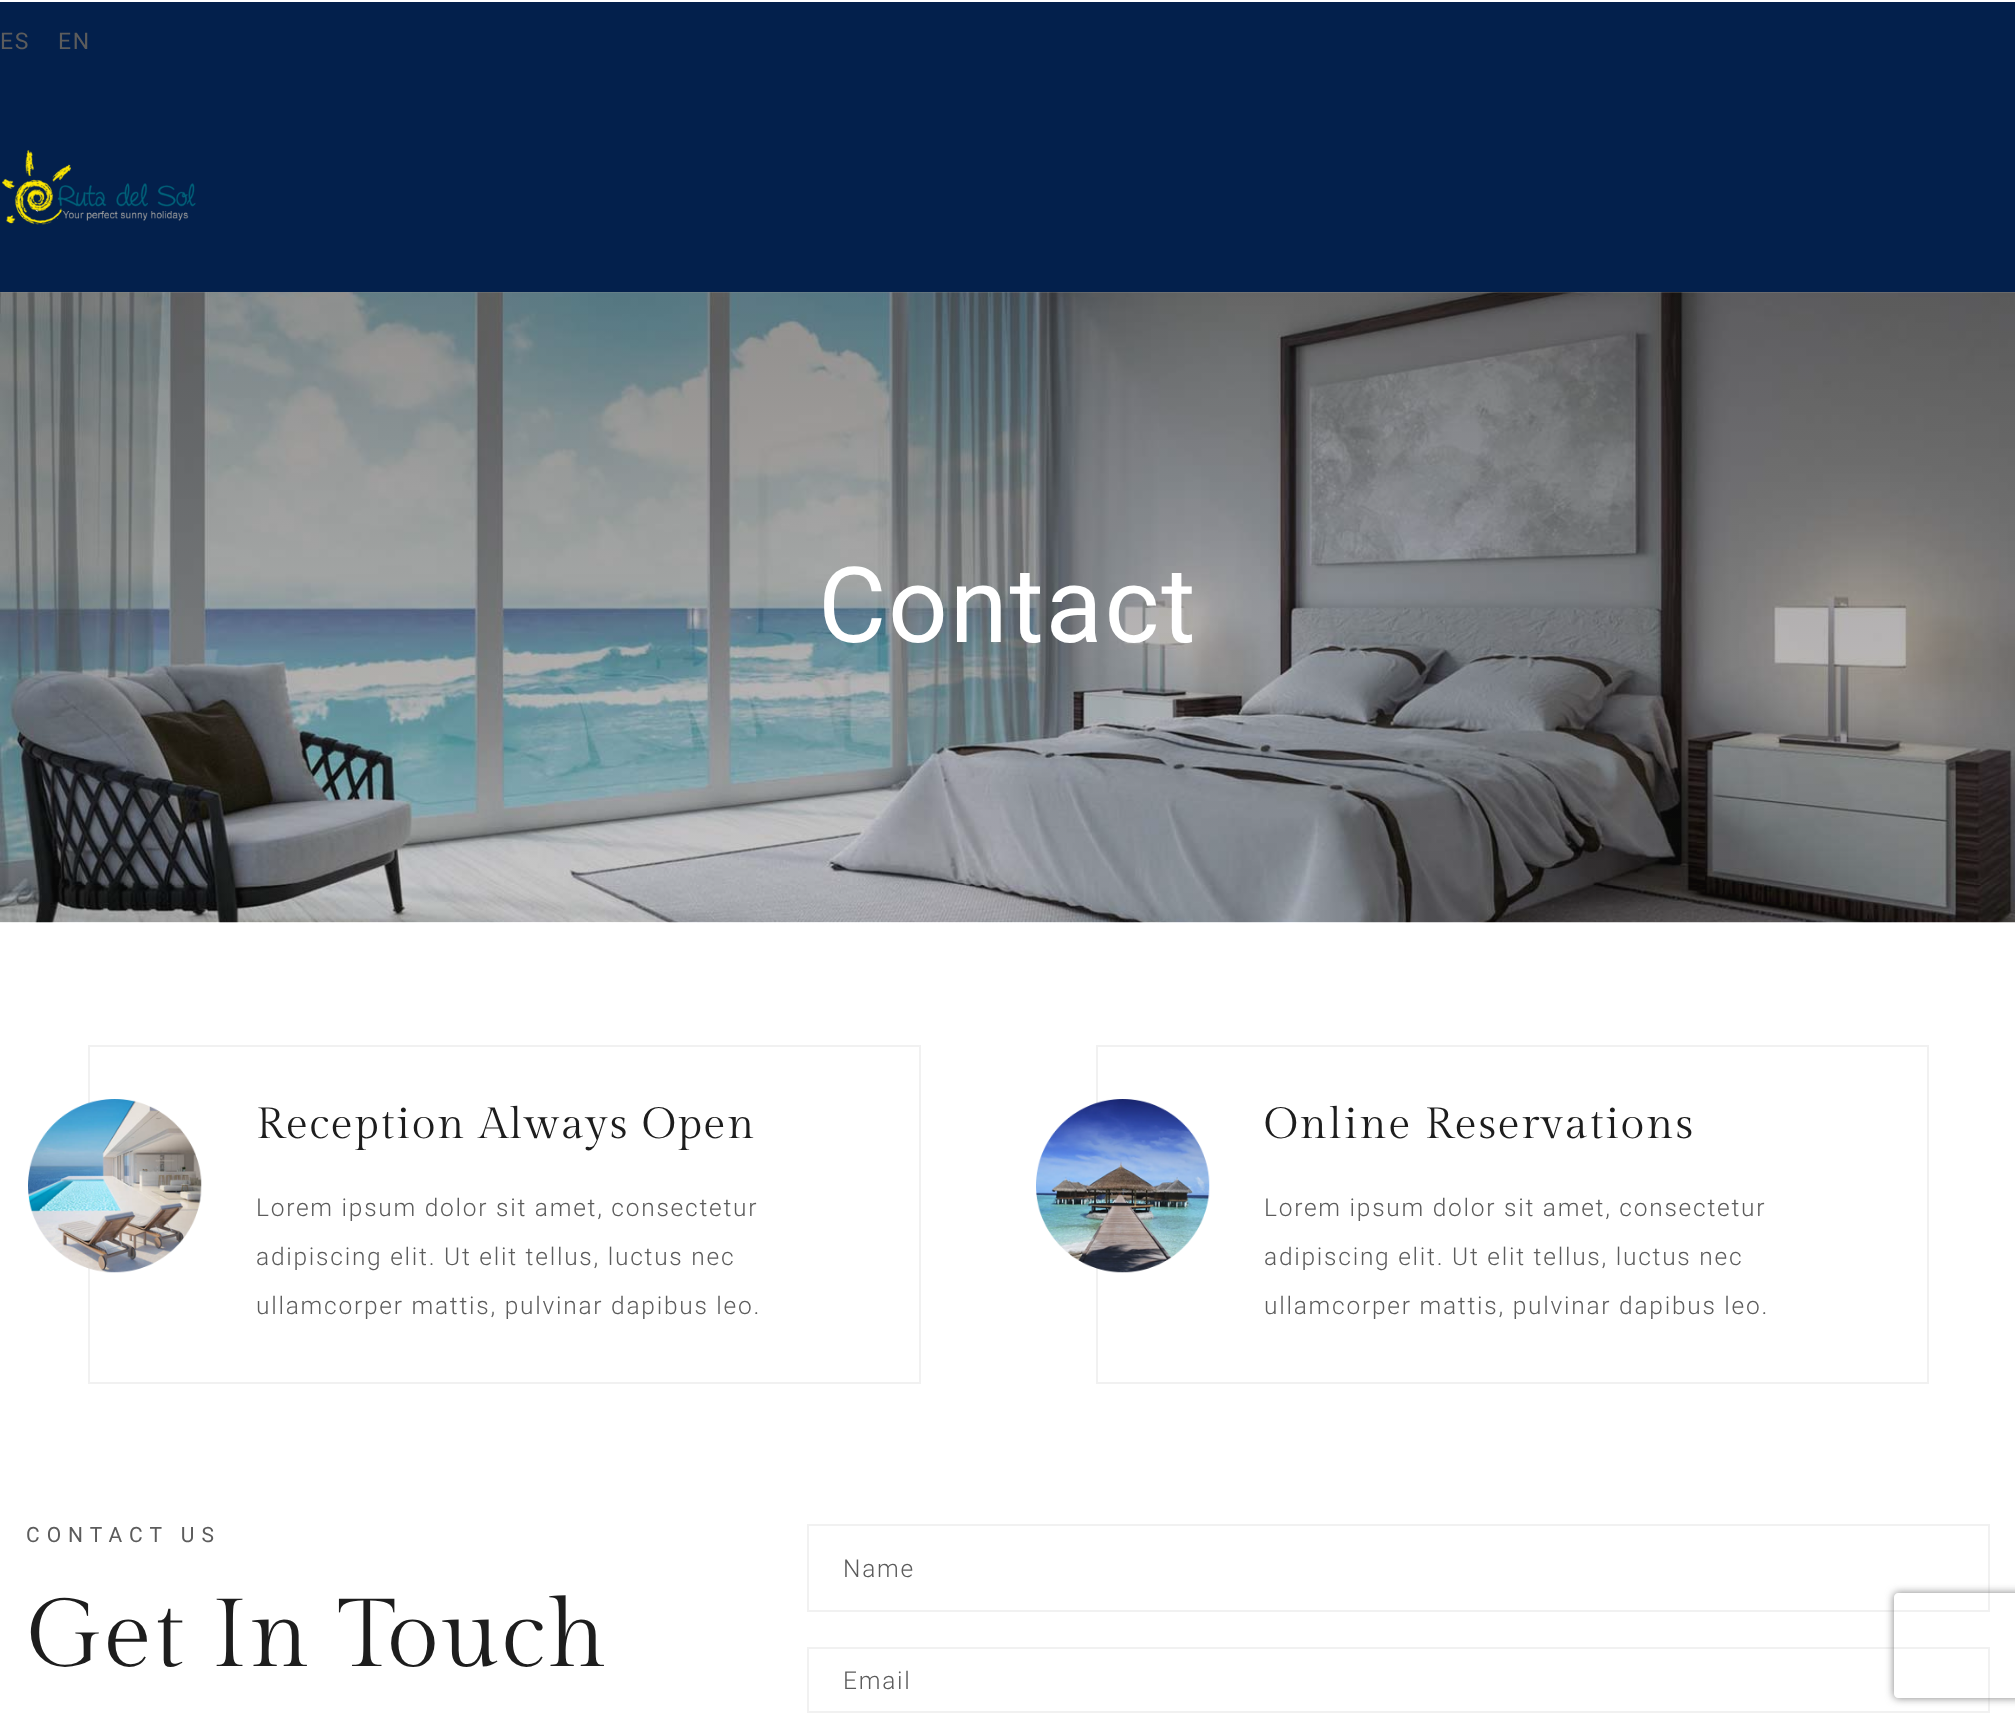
<svg xmlns="http://www.w3.org/2000/svg" width="2015" height="1722" viewBox="0 0 2015 1722">
  <defs>
    <linearGradient id="g1" gradientUnits="userSpaceOnUse" x1="1008" y1="292" x2="1008" y2="922"><stop offset="0" stop-color="rgb(29,29,29)" stop-opacity="0.45"/><stop offset="1" stop-color="rgb(29,29,29)" stop-opacity="0.22"/></linearGradient>
    <clipPath id="clip1"><path d="M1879 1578H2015V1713H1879ZM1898 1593H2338C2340 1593 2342 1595 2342 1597V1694C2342 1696 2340 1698 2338 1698H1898C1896 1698 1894 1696 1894 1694V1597C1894 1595 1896 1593 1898 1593Z" clip-rule="evenodd"/></clipPath>
  </defs>
  <rect width="100%" height="100%" fill="rgb(255,255,255)"/>
  <rect x="0" y="2" width="2015" height="290" fill="rgb(3,32,76)"/>
  <g font-family="Roboto" font-size="23" letter-spacing="1.75" fill="rgb(92,92,92)">
    <text x="0" y="49">ES</text>
    <text x="58" y="49">EN</text>
  </g>
  <image x="2" y="150" width="194" height="75" href="pic1.png"/>
  <image x="0" y="292" width="2015" height="631" href="pic2.png"/>
  <rect x="0" y="292" width="2015" height="630" fill="url(#g1)"/>
  <text x="818" y="642" font-family="Roboto" font-size="105" letter-spacing="1.75" fill="rgb(255,255,255)">Contact</text>
  <rect x="89" y="1046" width="831" height="337" fill="none" stroke="rgb(241,241,241)" stroke-width="2"/>
  <image x="28" y="1099" width="174" height="174" href="pic3.png"/>
  <text x="256" y="1138" font-family="Gilda Display" font-size="43.75" letter-spacing="1.75" fill="rgb(29,29,29)">Reception Always Open</text>
  <g font-family="Roboto" font-size="24.5" font-weight="300" letter-spacing="1.75" fill="rgb(92,92,92)">
    <text x="256" y="1216">Lorem ipsum dolor sit amet, consectetur</text>
    <text x="256" y="1265">adipiscing elit. Ut elit tellus, luctus nec</text>
    <text x="256" y="1314">ullamcorper mattis, pulvinar dapibus leo.</text>
  </g>
  <rect x="1097" y="1046" width="831" height="337" fill="none" stroke="rgb(241,241,241)" stroke-width="2"/>
  <image x="1036" y="1099" width="174" height="174" href="pic4.png"/>
  <text x="1264" y="1138" font-family="Gilda Display" font-size="43.75" letter-spacing="1.75" fill="rgb(29,29,29)">Online Reservations</text>
  <g font-family="Roboto" font-size="24.5" font-weight="300" letter-spacing="1.75" fill="rgb(92,92,92)">
    <text x="1264" y="1216">Lorem ipsum dolor sit amet, consectetur</text>
    <text x="1264" y="1265">adipiscing elit. Ut elit tellus, luctus nec</text>
    <text x="1264" y="1314">ullamcorper mattis, pulvinar dapibus leo.</text>
  </g>
  <text x="26" y="1542" font-family="Roboto" font-size="21" letter-spacing="7" fill="rgb(92,92,92)">CONTACT US</text>
  <text x="26" y="1666" font-family="Gilda Display" font-size="96.25" letter-spacing="1.75" fill="rgb(29,29,29)">Get In Touch</text>
  <rect x="808" y="1525" width="1181" height="86" fill="none" stroke="rgb(241,241,241)" stroke-width="2"/>
  <text x="843" y="1577" font-family="Roboto" font-size="24.5" font-weight="300" letter-spacing="1.75" fill="rgb(92,92,92)">Name</text>
  <rect x="808" y="1648" width="1181" height="64" fill="none" stroke="rgb(241,241,241)" stroke-width="2"/>
  <text x="843" y="1689" font-family="Roboto" font-size="24.5" font-weight="300" letter-spacing="1.75" fill="rgb(92,92,92)">Email</text>
  <g clip-path="url(#clip1)">
    <rect x="1894" y="1593" width="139" height="105" rx="4" fill="rgb(128,128,128)" filter="blur(4.5px)"/>
  </g>
</svg>
